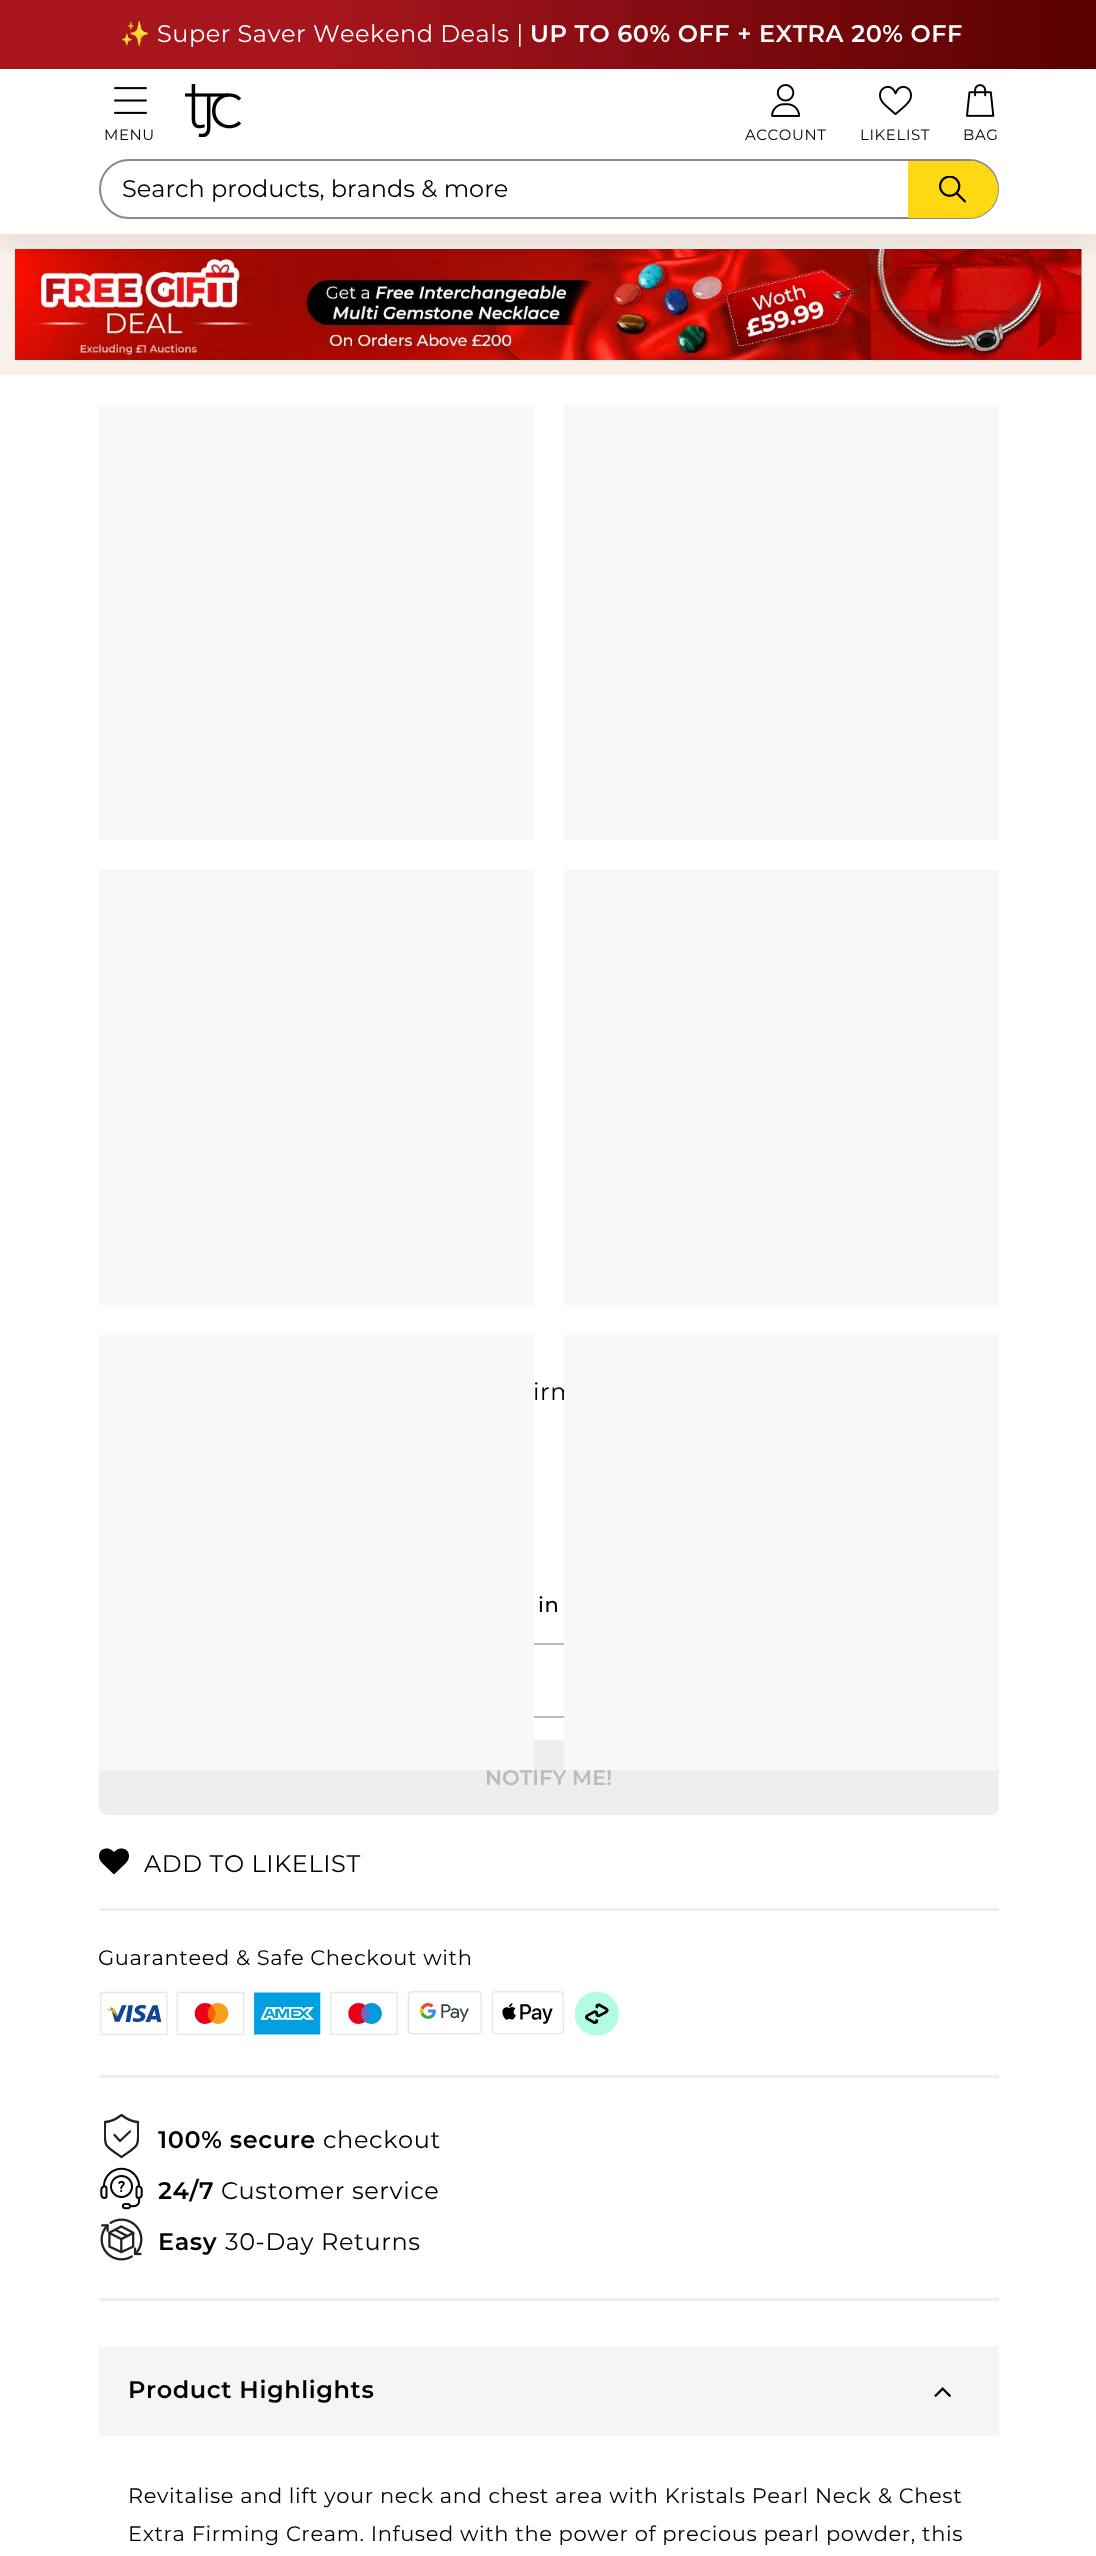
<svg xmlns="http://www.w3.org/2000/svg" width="1096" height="2556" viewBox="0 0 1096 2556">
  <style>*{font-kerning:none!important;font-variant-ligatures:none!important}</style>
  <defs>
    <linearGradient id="g1" gradientUnits="userSpaceOnUse" x1="0" y1="35" x2="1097" y2="34"><stop offset="0.3" stop-color="rgb(167,21,30)"/><stop offset="1" stop-color="rgb(88,0,0)"/></linearGradient>
    <clipPath id="clip1"><rect x="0" y="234" width="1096" height="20"/></clipPath>
    <clipPath id="clip2"><rect x="104" y="2114" width="35" height="45"/></clipPath>
  </defs>
  <rect width="100%" height="100%" fill="rgb(255,255,255)"/>
  <rect x="0" y="0" width="1096" height="69" fill="url(#g1)"/>
  <text x="120" y="42" font-family="Noto Color Emoji" font-size="24" letter-spacing="0.5" fill="rgb(255,255,255)">✨</text>
  <text x="157" y="42" font-family="Montserrat" font-size="24" letter-spacing="0.5" fill="rgb(255,255,255)">Super Saver Weekend Deals |</text>
  <text x="530" y="42" font-family="Montserrat" font-size="24" font-weight="600" letter-spacing="0.5" fill="rgb(255,255,255)">UP TO 60% OFF + EXTRA 20% OFF</text>
  <rect x="0" y="234" width="1096" height="141" fill="rgb(249,240,234)"/>
  <image x="15" y="249" width="1067" height="111" href="pic7.png"/>
  <g clip-path="url(#clip1)">
    <rect x="0" y="84" width="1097" height="165" fill="rgba(0,0,0,0.06)" filter="blur(11px)"/>
  </g>
  <image x="114" y="87" width="33" height="27" href="pic1.png"/>
  <text x="104" y="140" font-family="Montserrat" font-size="15" letter-spacing="0.6" fill="rgb(0,0,0)">MENU</text>
  <image x="185" y="84" width="56" height="53" href="pic2.png"/>
  <image x="771" y="84" width="29" height="33" href="pic3.png"/>
  <text x="745" y="140" font-family="Montserrat" font-size="15" letter-spacing="0.6" fill="rgb(0,0,0)">ACCOUNT</text>
  <image x="879" y="85" width="33" height="30" href="pic4.png"/>
  <text x="860" y="140" font-family="Montserrat" font-size="15" letter-spacing="0.6" fill="rgb(0,0,0)">LIKELIST</text>
  <image x="966" y="84" width="29" height="33" href="pic5.png"/>
  <text x="963" y="140" font-family="Montserrat" font-size="15" letter-spacing="0.6" fill="rgb(0,0,0)">BAG</text>
  <rect x="100" y="160" width="898" height="58" rx="29" fill="none" stroke="rgb(136,136,136)" stroke-width="2"/>
  <text x="122" y="197" font-family="Montserrat" font-size="24" fill="rgb(0,0,0)">Search products, brands &amp; more</text>
  <path d="M908 161H969.5C985 161 998 174 998 189.5C998 205 985 218 969.5 218H908Z" fill="rgb(255,216,20)"/>
  <image x="939" y="176" width="27" height="27" href="pic6.png"/>
  <rect x="99" y="405" width="435" height="435" fill="rgb(248,248,248)"/>
  <rect x="564" y="405" width="435" height="435" fill="rgb(248,248,248)"/>
  <rect x="99" y="870" width="435" height="435" fill="rgb(248,248,248)"/>
  <rect x="564" y="870" width="435" height="435" fill="rgb(248,248,248)"/>
  <rect x="100" y="1644" width="898" height="73" fill="none" stroke="rgb(187,187,187)" stroke-width="2"/>
  <rect x="100" y="1741" width="898" height="73" rx="7" fill="rgb(238,238,238)" stroke="rgb(238,238,238)" stroke-width="2"/>
  <rect x="99" y="1335" width="435" height="435" fill="rgb(248,248,248)"/>
  <text x="533" y="1400" font-family="Montserrat" font-size="24" letter-spacing="0.6" fill="rgb(0,0,0)">irm</text>
  <rect x="564" y="1335" width="435" height="435" fill="rgb(248,248,248)"/>
  <text x="538" y="1612" font-family="Montserrat" font-size="21" font-weight="500" letter-spacing="0.6" fill="rgb(0,0,0)">in</text>
  <text x="485" y="1785" font-family="Montserrat" font-size="21" font-weight="600" fill="rgb(187,187,187)">NOTIFY ME!</text>
  <image x="99" y="1848" width="30" height="27" href="pic8.png"/>
  <text x="144" y="1872" font-family="Montserrat" font-size="24" letter-spacing="0.6" fill="rgb(0,0,0)">ADD TO LIKELIST</text>
  <rect x="99" y="1908" width="900" height="3" fill="rgb(238,238,238)"/>
  <rect x="99" y="2298" width="900" height="3" fill="rgb(238,238,238)"/>
  <rect x="99" y="2075" width="900" height="3" fill="rgb(238,238,238)"/>
  <text x="98" y="1965" font-family="Montserrat" font-size="21" letter-spacing="0.6" fill="rgb(0,0,0)">Guaranteed &amp; Safe Checkout with</text>
  <image x="100" y="1991" width="519" height="45" href="pic9.png"/>
  <path d="M114.5 2135L120 2141L130 2131.5" fill="none" stroke="rgb(34,34,34)" stroke-width="2.3" stroke-linecap="round" stroke-linejoin="round"/>
  <g clip-path="url(#clip2)">
    <path d="M121.5 2115C121.5 2115 112.5 2122 105 2122C105 2146.5 101.5 2144 121.5 2157C141.5 2144 138 2146.5 138 2122C130.5 2122 121.5 2115 121.5 2115Z" fill="none" stroke="rgb(34,34,34)" stroke-width="2.3" stroke-linecap="round" stroke-linejoin="round"/>
  </g>
  <text x="158" y="2148" font-family="Montserrat" font-size="24" font-weight="600" letter-spacing="0.6" fill="rgb(0,0,0)">100% secure</text>
  <text x="323" y="2148" font-family="Montserrat" font-size="24" letter-spacing="0.6" fill="rgb(0,0,0)">checkout</text>
  <image x="100" y="2167" width="43" height="43" href="pic10.png"/>
  <text x="158" y="2199" font-family="Montserrat" font-size="24" font-weight="600" letter-spacing="0.6" fill="rgb(0,0,0)">24/7</text>
  <text x="221" y="2199" font-family="Montserrat" font-size="24" letter-spacing="0.6" fill="rgb(0,0,0)">Customer service</text>
  <image x="100" y="2218" width="43" height="43" href="pic11.png"/>
  <text x="158" y="2250" font-family="Montserrat" font-size="24" font-weight="600" letter-spacing="0.6" fill="rgb(0,0,0)">Easy</text>
  <text x="225" y="2250" font-family="Montserrat" font-size="24" letter-spacing="0.6" fill="rgb(0,0,0)">30-Day Returns</text>
  <rect x="99" y="2346" width="900" height="90" fill="rgb(245,245,245)"/>
  <text x="128" y="2398" font-family="Montserrat" font-size="24" font-weight="600" letter-spacing="0.6" fill="rgb(0,0,0)">Product Highlights</text>
  <image x="934" y="2387" width="17" height="10" href="pic12.png"/>
  <g font-family="Montserrat" font-size="21" letter-spacing="0.6" fill="rgb(0,0,0)">
    <text x="128" y="2503">Revitalise and lift your neck and chest area with Kristals Pearl Neck</text>
    <text x="878" y="2503">&amp; Chest</text>
    <text x="128" y="2541">Extra Firming Cream. Infused with the power of precious pearl powder,</text>
    <text x="922" y="2541">this</text>
  </g>
</svg>
